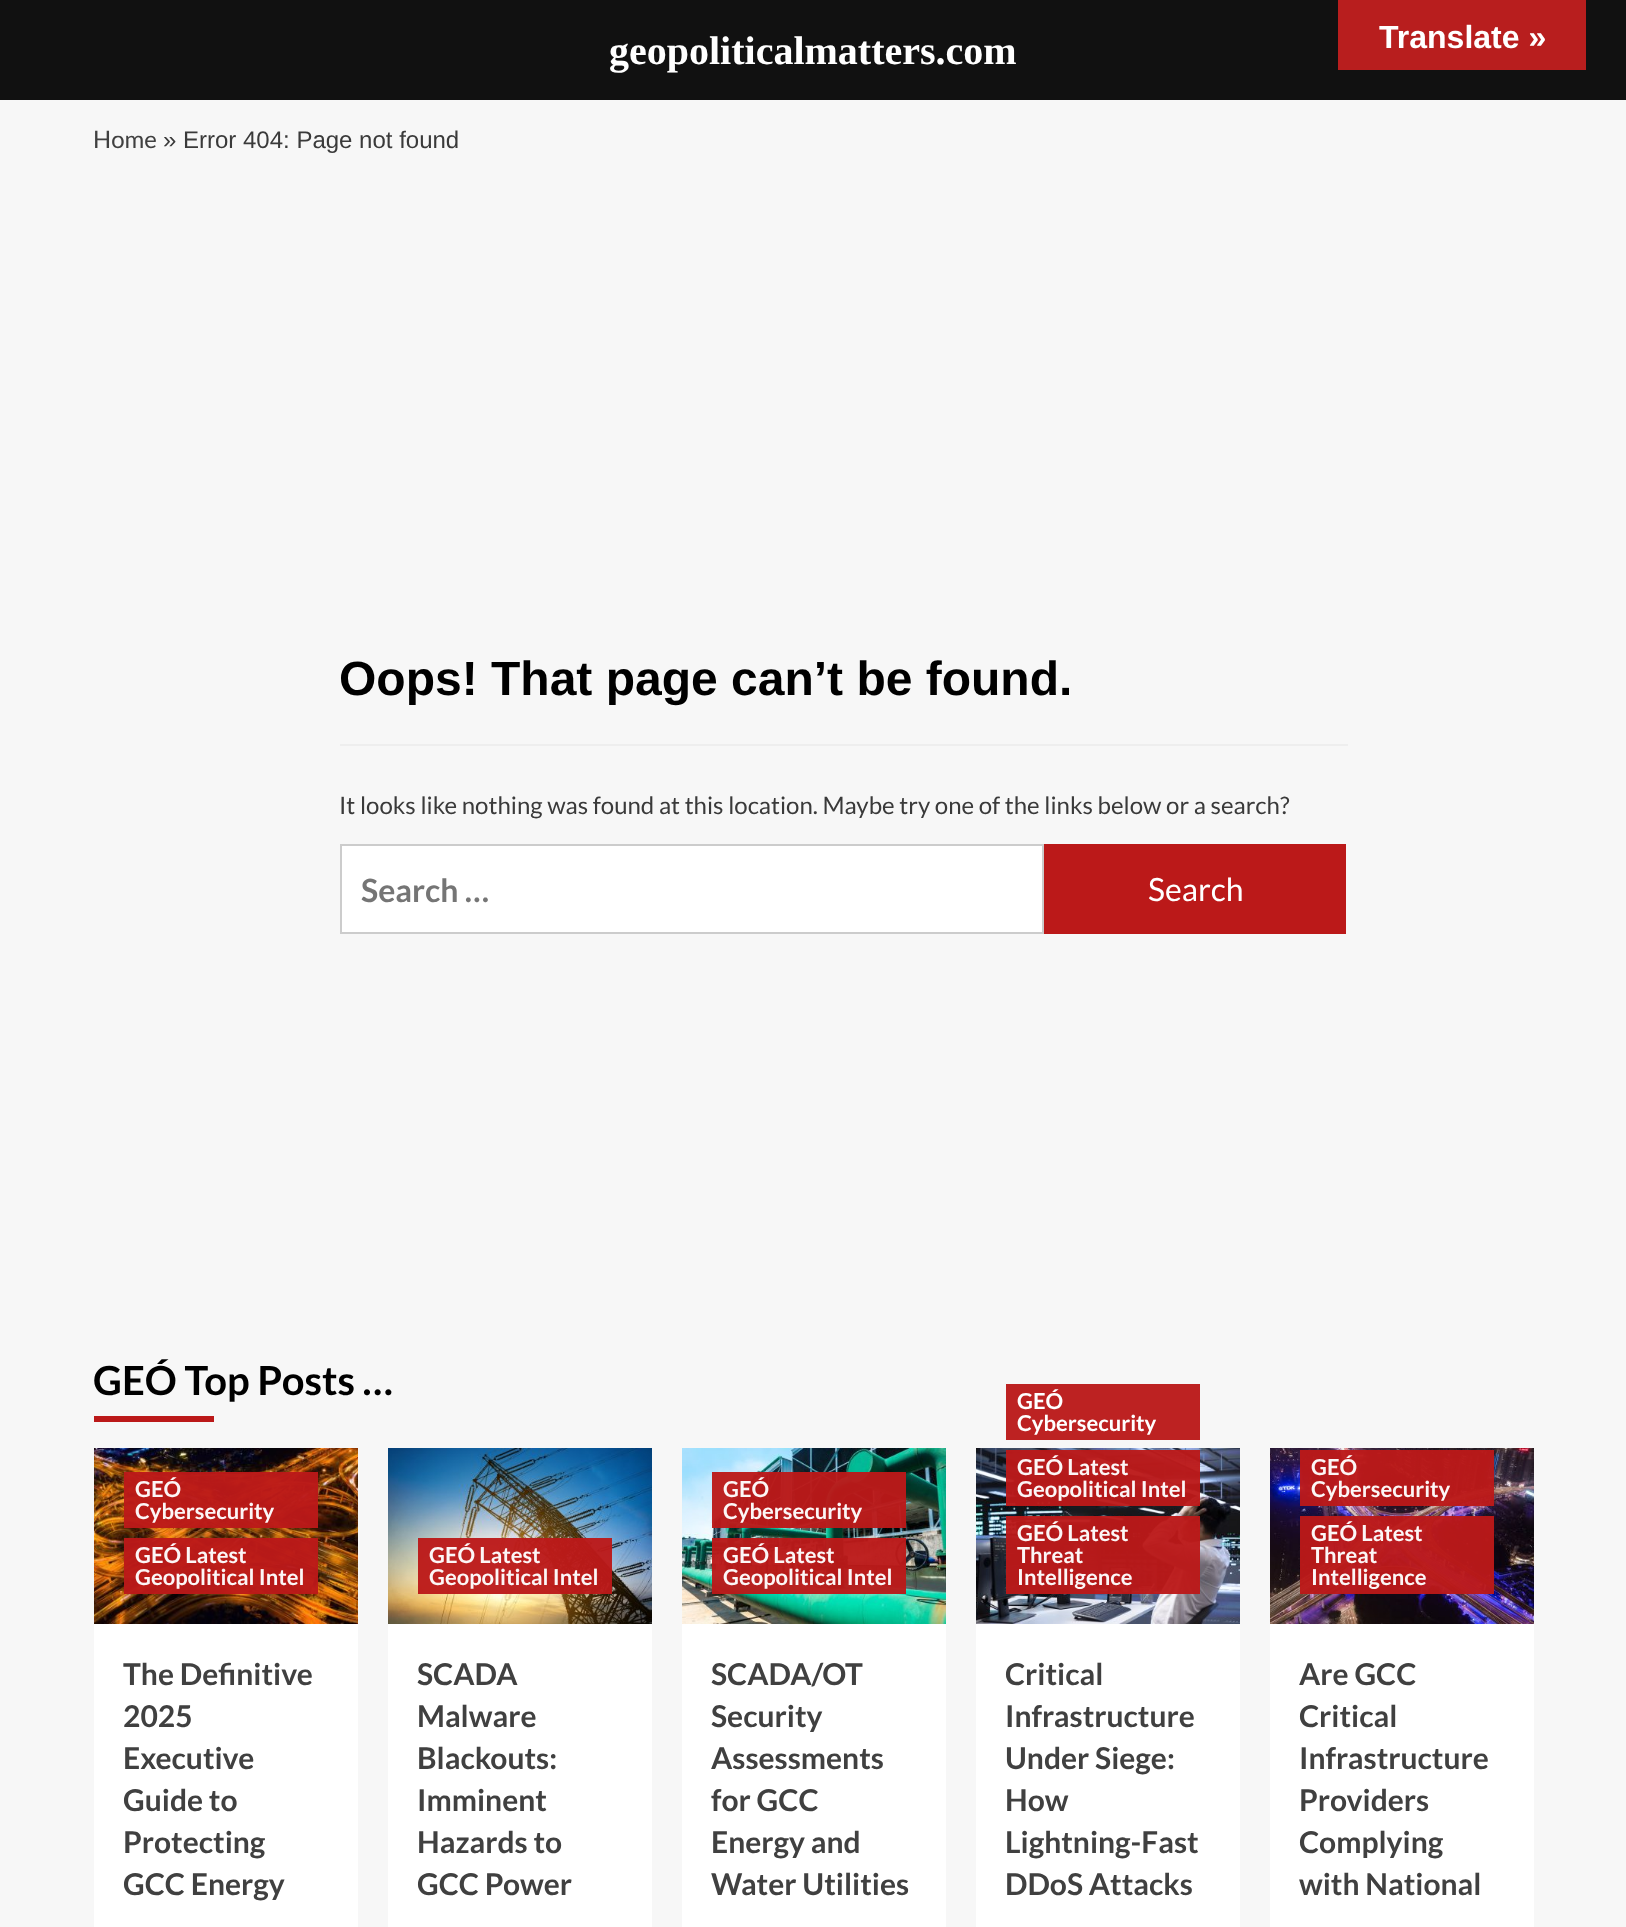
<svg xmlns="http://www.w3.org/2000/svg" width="1626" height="1927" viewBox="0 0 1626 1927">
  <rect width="100%" height="100%" fill="rgb(247,247,247)"/>
  <rect x="0" y="0" width="1626" height="100" fill="rgb(17,17,17)"/>
  <text x="609" y="64" font-family="Liberation Serif" font-size="40" font-weight="bold" fill="rgb(255,255,255)">geopoliticalmatters.com</text>
  <rect x="1338" y="0" width="248" height="70" fill="rgb(184,30,30)"/>
  <text x="1379" y="48" font-family="Liberation Sans" font-size="32" font-weight="bold" fill="rgb(255,255,255)">Translate »</text>
  <text x="93" y="148" font-family="Lato" font-size="24" fill="rgb(64,64,64)">Home</text>
  <text x="163" y="148" font-family="Liberation Sans" font-size="24" fill="rgb(58,58,58)">» Error 404: Page not found</text>
  <rect x="340" y="744" width="1008" height="2" fill="rgb(238,238,238)"/>
  <text x="339" y="695" font-family="Liberation Sans" font-size="48" font-weight="bold" fill="rgb(0,0,0)">Oops! That page can’t be found.</text>
  <text x="339" y="814" font-family="Lato" font-size="24" fill="rgb(58,58,58)">It looks like nothing was found at this location. Maybe try one of the links below or a search?</text>
  <rect x="341" y="845" width="702" height="88" fill="rgb(255,255,255)" stroke="rgb(204,204,204)" stroke-width="2"/>
  <text x="361" y="902" font-family="Lato" font-size="32" font-weight="bold" fill="rgb(117,117,117)">Search …</text>
  <rect x="1044" y="844" width="302" height="90" fill="rgb(187,25,25)"/>
  <text x="1148" y="901" font-family="Lato" font-size="32" fill="rgb(255,255,255)">Search</text>
  <text x="93" y="1395" font-family="Lato" font-size="40" font-weight="bold" fill="rgb(0,0,0)">GEÓ Top Posts …</text>
  <rect x="94" y="1416" width="120" height="6" fill="rgb(187,25,25)"/>
  <rect x="94" y="1624" width="264" height="303" fill="rgb(255,255,255)"/>
  <image x="94" y="1448" width="264" height="176" href="pic1.png"/>
  <rect x="124" y="1472" width="194" height="56" fill="rgba(187,25,25,0.96)"/>
  <g font-family="Lato" font-size="22" font-weight="bold" fill="rgb(252,246,246)">
    <text>
      <tspan x="135" y="1497">GEÓ</tspan>
      <tspan x="135" y="1519">Cybersecurity</tspan>
    </text>
  </g>
  <rect x="124" y="1538" width="194" height="56" fill="rgba(187,25,25,0.96)"/>
  <g font-family="Lato" font-size="22" font-weight="bold" fill="rgb(252,246,246)">
    <text>
      <tspan x="135" y="1563">GEÓ Latest</tspan>
      <tspan x="135" y="1585">Geopolitical Intel</tspan>
    </text>
  </g>
  <g font-family="Lato" font-size="30" font-weight="bold" fill="rgb(64,64,64)">
    <text>
      <tspan x="123" y="1685">The Definitive</tspan>
      <tspan x="123" y="1727">2025</tspan>
      <tspan x="123" y="1769">Executive</tspan>
      <tspan x="123" y="1811">Guide to</tspan>
      <tspan x="123" y="1853">Protecting</tspan>
      <tspan x="123" y="1895">GCC Energy</tspan>
    </text>
  </g>
  <rect x="388" y="1624" width="264" height="303" fill="rgb(255,255,255)"/>
  <image x="388" y="1448" width="264" height="176" href="pic2.png"/>
  <rect x="418" y="1538" width="194" height="56" fill="rgba(187,25,25,0.96)"/>
  <g font-family="Lato" font-size="22" font-weight="bold" fill="rgb(252,246,246)">
    <text>
      <tspan x="429" y="1563">GEÓ Latest</tspan>
      <tspan x="429" y="1585">Geopolitical Intel</tspan>
    </text>
  </g>
  <g font-family="Lato" font-size="30" font-weight="bold" fill="rgb(64,64,64)">
    <text>
      <tspan x="417" y="1685">SCADA</tspan>
      <tspan x="417" y="1727">Malware</tspan>
      <tspan x="417" y="1769">Blackouts:</tspan>
      <tspan x="417" y="1811">Imminent</tspan>
      <tspan x="417" y="1853">Hazards to</tspan>
      <tspan x="417" y="1895">GCC Power</tspan>
    </text>
  </g>
  <rect x="682" y="1624" width="264" height="303" fill="rgb(255,255,255)"/>
  <image x="682" y="1448" width="264" height="176" href="pic3.png"/>
  <rect x="712" y="1472" width="194" height="56" fill="rgba(187,25,25,0.96)"/>
  <g font-family="Lato" font-size="22" font-weight="bold" fill="rgb(252,246,246)">
    <text>
      <tspan x="723" y="1497">GEÓ</tspan>
      <tspan x="723" y="1519">Cybersecurity</tspan>
    </text>
  </g>
  <rect x="712" y="1538" width="194" height="56" fill="rgba(187,25,25,0.96)"/>
  <g font-family="Lato" font-size="22" font-weight="bold" fill="rgb(252,246,246)">
    <text>
      <tspan x="723" y="1563">GEÓ Latest</tspan>
      <tspan x="723" y="1585">Geopolitical Intel</tspan>
    </text>
  </g>
  <g font-family="Lato" font-size="30" font-weight="bold" fill="rgb(64,64,64)">
    <text>
      <tspan x="711" y="1685">SCADA/OT</tspan>
      <tspan x="711" y="1727">Security</tspan>
      <tspan x="711" y="1769">Assessments</tspan>
      <tspan x="711" y="1811">for GCC</tspan>
      <tspan x="711" y="1853">Energy and</tspan>
      <tspan x="711" y="1895">Water Utilities</tspan>
    </text>
  </g>
  <rect x="976" y="1624" width="264" height="303" fill="rgb(255,255,255)"/>
  <rect x="1006" y="1384" width="194" height="56" fill="rgb(189,34,34)"/>
  <g font-family="Lato" font-size="22" font-weight="bold" fill="rgb(255,255,255)">
    <text>
      <tspan x="1017" y="1409">GEÓ</tspan>
      <tspan x="1017" y="1431">Cybersecurity</tspan>
    </text>
  </g>
  <image x="976" y="1448" width="264" height="176" href="pic4.png"/>
  <rect x="1006" y="1450" width="194" height="56" fill="rgba(187,25,25,0.96)"/>
  <g font-family="Lato" font-size="22" font-weight="bold" fill="rgb(252,246,246)">
    <text>
      <tspan x="1017" y="1475">GEÓ Latest</tspan>
      <tspan x="1017" y="1497">Geopolitical Intel</tspan>
    </text>
  </g>
  <rect x="1006" y="1516" width="194" height="78" fill="rgba(187,25,25,0.96)"/>
  <g font-family="Lato" font-size="22" font-weight="bold" fill="rgb(252,246,246)">
    <text>
      <tspan x="1017" y="1541">GEÓ Latest</tspan>
      <tspan x="1017" y="1563">Threat</tspan>
      <tspan x="1017" y="1585">Intelligence</tspan>
    </text>
  </g>
  <g font-family="Lato" font-size="30" font-weight="bold" fill="rgb(64,64,64)">
    <text>
      <tspan x="1005" y="1685">Critical</tspan>
      <tspan x="1005" y="1727">Infrastructure</tspan>
      <tspan x="1005" y="1769">Under Siege:</tspan>
      <tspan x="1005" y="1811">How</tspan>
      <tspan x="1005" y="1853">Lightning-Fast</tspan>
      <tspan x="1005" y="1895">DDoS Attacks</tspan>
    </text>
  </g>
  <rect x="1270" y="1624" width="264" height="303" fill="rgb(255,255,255)"/>
  <image x="1270" y="1448" width="264" height="176" href="pic5.png"/>
  <rect x="1300" y="1450" width="194" height="56" fill="rgba(187,25,25,0.96)"/>
  <g font-family="Lato" font-size="22" font-weight="bold" fill="rgb(252,246,246)">
    <text>
      <tspan x="1311" y="1475">GEÓ</tspan>
      <tspan x="1311" y="1497">Cybersecurity</tspan>
    </text>
  </g>
  <rect x="1300" y="1516" width="194" height="78" fill="rgba(187,25,25,0.96)"/>
  <g font-family="Lato" font-size="22" font-weight="bold" fill="rgb(252,246,246)">
    <text>
      <tspan x="1311" y="1541">GEÓ Latest</tspan>
      <tspan x="1311" y="1563">Threat</tspan>
      <tspan x="1311" y="1585">Intelligence</tspan>
    </text>
  </g>
  <g font-family="Lato" font-size="30" font-weight="bold" fill="rgb(64,64,64)">
    <text>
      <tspan x="1299" y="1685">Are GCC</tspan>
      <tspan x="1299" y="1727">Critical</tspan>
      <tspan x="1299" y="1769">Infrastructure</tspan>
      <tspan x="1299" y="1811">Providers</tspan>
      <tspan x="1299" y="1853">Complying</tspan>
      <tspan x="1299" y="1895">with National</tspan>
    </text>
  </g>
</svg>
